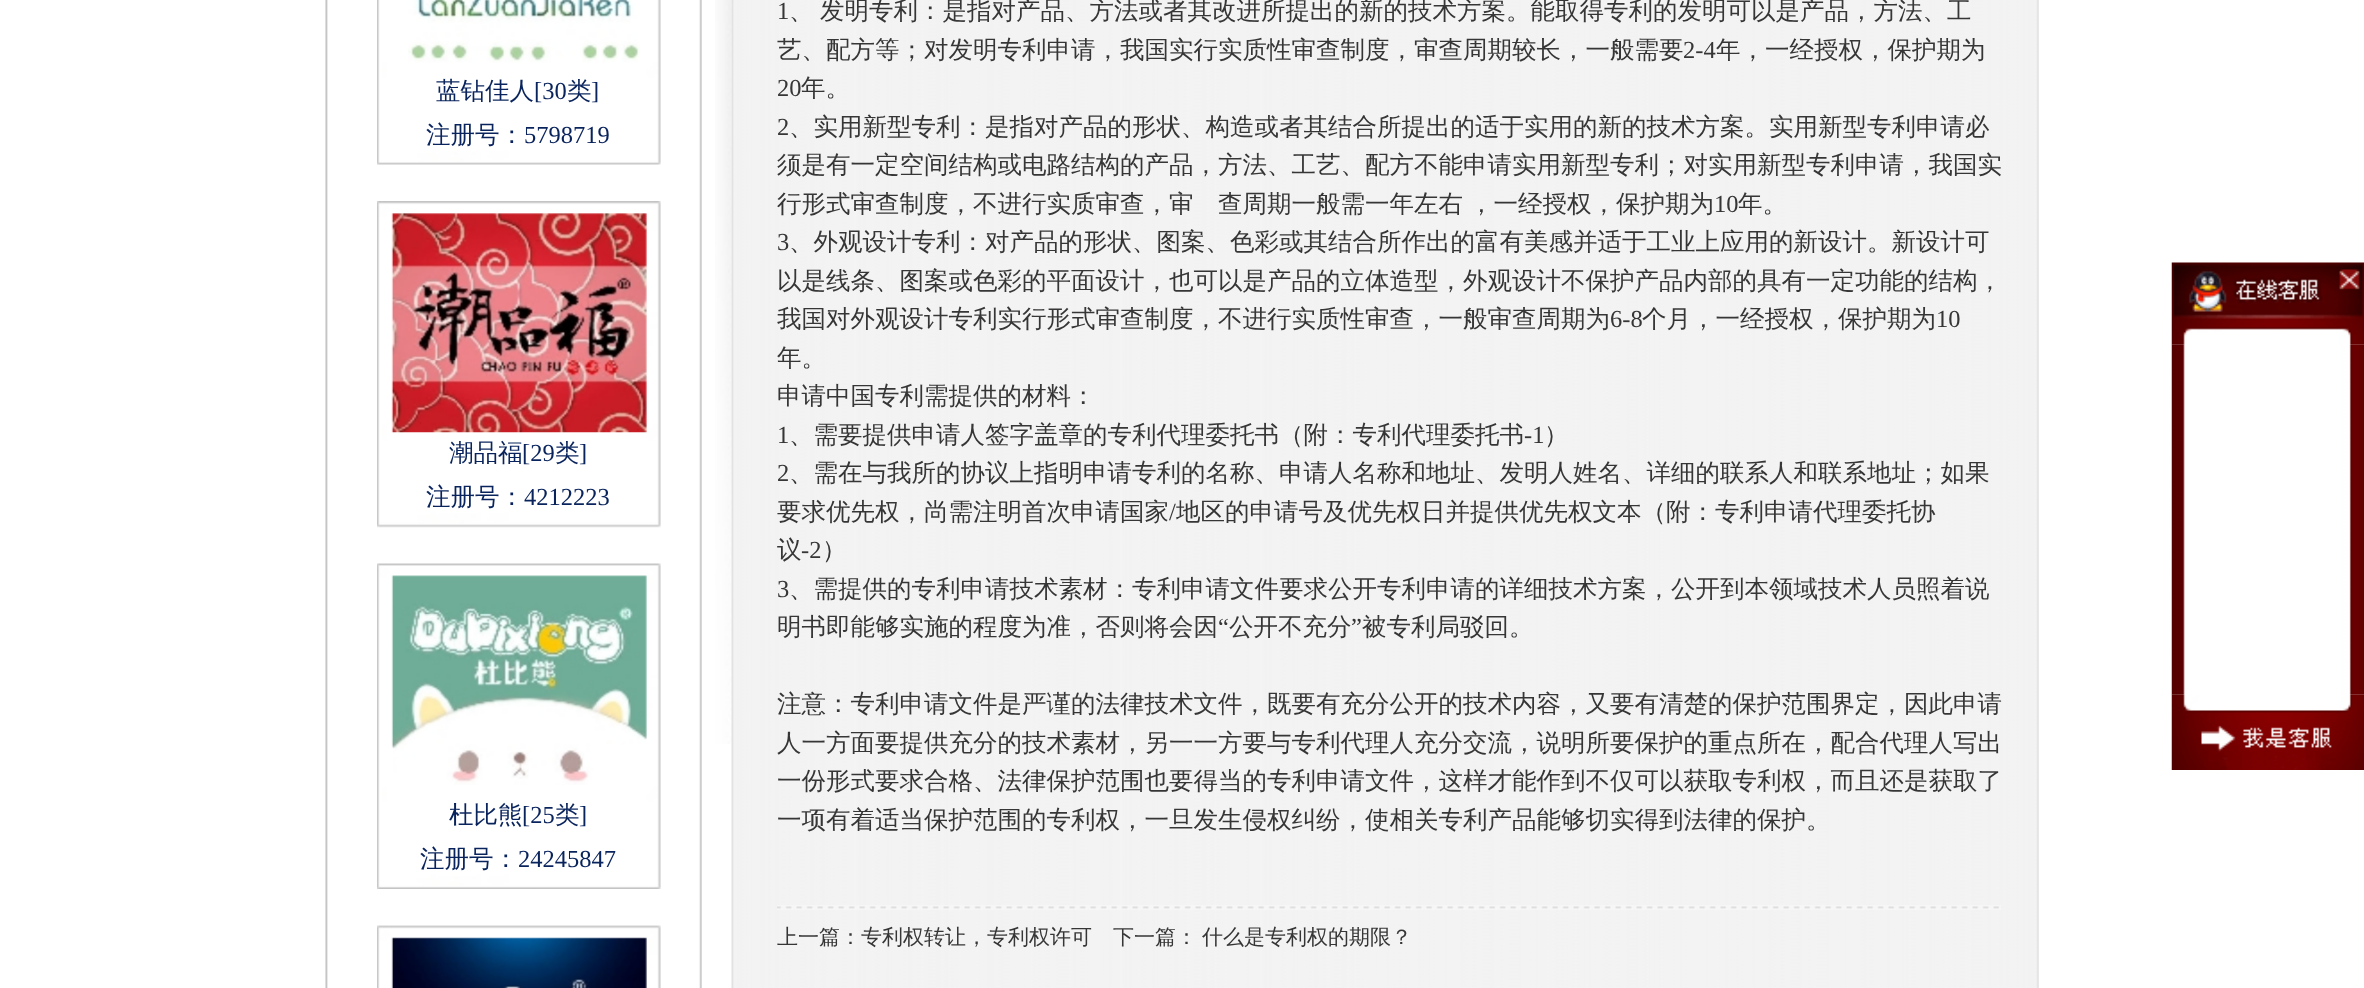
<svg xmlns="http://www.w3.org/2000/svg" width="2364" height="988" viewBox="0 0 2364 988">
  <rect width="100%" height="100%" fill="rgb(255,255,255)"/>
  <image x="325" y="0" width="377" height="988" href="pic1.png"/>
  <image x="377" y="0" width="284" height="165" href="pic2.png"/>
  <image x="408" y="0" width="232" height="63" href="pic3.png"/>
  <text x="436" y="99" font-family="WenQuanYi Zen Hei" font-size="24.5" font-weight="500" fill="rgb(9,35,92)">蓝钻佳人</text>
  <text x="534" y="99" font-family="Liberation Serif" font-size="24.5" fill="rgb(9,35,92)">[30</text>
  <text x="567" y="99" font-family="WenQuanYi Zen Hei" font-size="24.5" font-weight="500" fill="rgb(9,35,92)">类</text>
  <text x="591" y="99" font-family="Liberation Serif" font-size="24.5" fill="rgb(9,35,92)">]</text>
  <text x="426" y="143" font-family="WenQuanYi Zen Hei" font-size="24.5" font-weight="500" fill="rgb(9,35,92)">注册号：</text>
  <text x="524" y="143" font-family="Liberation Serif" font-size="24.5" fill="rgb(9,35,92)">5798719</text>
  <image x="377" y="201" width="284" height="327" href="pic4.png"/>
  <image x="391" y="213" width="256" height="220" href="pic5.png"/>
  <text x="449" y="461" font-family="WenQuanYi Zen Hei" font-size="24.5" font-weight="500" fill="rgb(9,35,92)">潮品福</text>
  <text x="522" y="461" font-family="Liberation Serif" font-size="24.5" fill="rgb(9,35,92)">[29</text>
  <text x="555" y="461" font-family="WenQuanYi Zen Hei" font-size="24.5" font-weight="500" fill="rgb(9,35,92)">类</text>
  <text x="579" y="461" font-family="Liberation Serif" font-size="24.5" fill="rgb(9,35,92)">]</text>
  <text x="426" y="505" font-family="WenQuanYi Zen Hei" font-size="24.5" font-weight="500" fill="rgb(9,35,92)">注册号：</text>
  <text x="524" y="505" font-family="Liberation Serif" font-size="24.5" fill="rgb(9,35,92)">4212223</text>
  <image x="377" y="563" width="284" height="326" href="pic6.png"/>
  <image x="391" y="575" width="256" height="210" href="pic7.png"/>
  <text x="449" y="823" font-family="WenQuanYi Zen Hei" font-size="24.5" font-weight="500" fill="rgb(9,35,92)">杜比熊</text>
  <text x="522" y="823" font-family="Liberation Serif" font-size="24.5" fill="rgb(9,35,92)">[25</text>
  <text x="555" y="823" font-family="WenQuanYi Zen Hei" font-size="24.5" font-weight="500" fill="rgb(9,35,92)">类</text>
  <text x="579" y="823" font-family="Liberation Serif" font-size="24.5" fill="rgb(9,35,92)">]</text>
  <text x="420" y="867" font-family="WenQuanYi Zen Hei" font-size="24.5" font-weight="500" fill="rgb(9,35,92)">注册号：</text>
  <text x="518" y="867" font-family="Liberation Serif" font-size="24.5" fill="rgb(9,35,92)">24245847</text>
  <image x="377" y="925" width="284" height="63" href="pic8.png"/>
  <image x="391" y="937" width="256" height="51" href="pic9.png"/>
  <image x="715" y="0" width="17" height="744" href="pic10.png"/>
  <image x="731" y="0" width="1308" height="988" href="pic11.png"/>
  <text x="777" y="19" font-family="Liberation Serif" font-size="24.5" fill="rgb(54,54,54)">1</text>
  <g font-family="WenQuanYi Zen Hei" font-size="24.5" font-weight="500" fill="rgb(54,54,54)">
    <text x="820" y="19">发明专利：是指对产品、方法或者其改进所提出的新的技术方案。能取得专利的发明可以是产品，方法、工</text>
    <text x="789" y="19">、</text>
    <text x="777" y="58">艺、配方等；对发明专利申请，我国实行实质性审查制度，审查周期较长，一般需要</text>
  </g>
  <text x="1683" y="58" font-family="Liberation Serif" font-size="24.5" fill="rgb(54,54,54)">2-4</text>
  <text x="1716" y="58" font-family="WenQuanYi Zen Hei" font-size="24.5" font-weight="500" fill="rgb(54,54,54)">年，一经授权，保护期为</text>
  <text x="777" y="96" font-family="Liberation Serif" font-size="24.5" fill="rgb(54,54,54)">20</text>
  <text x="801" y="96" font-family="WenQuanYi Zen Hei" font-size="24.5" font-weight="500" fill="rgb(54,54,54)">年。</text>
  <text x="777" y="135" font-family="Liberation Serif" font-size="24.5" fill="rgb(54,54,54)">2</text>
  <g font-family="WenQuanYi Zen Hei" font-size="24.5" font-weight="500" fill="rgb(54,54,54)">
    <text x="789" y="135">、实用新型专利：是指对产品的形状、构造或者其结合所提出的适于实用的新的技术方案。实用新型专利申请必</text>
    <text>
      <tspan x="777" y="173">须是有一定空间结构或电路结构的产品，方法、工艺、配方不能申请实用新型专利；对实用新型专利申请，我国实</tspan>
      <tspan x="777" y="212">行形式审查制度，不进行实质审查，审</tspan>
    </text>
    <text x="1218" y="212">查周期一般需一年左右</text>
    <text x="1469" y="212">，一经授权，保护期为</text>
  </g>
  <text x="1714" y="212" font-family="Liberation Serif" font-size="24.5" fill="rgb(54,54,54)">10</text>
  <text x="1738" y="212" font-family="WenQuanYi Zen Hei" font-size="24.5" font-weight="500" fill="rgb(54,54,54)">年。</text>
  <text x="777" y="250" font-family="Liberation Serif" font-size="24.5" fill="rgb(54,54,54)">3</text>
  <g font-family="WenQuanYi Zen Hei" font-size="24.5" font-weight="500" fill="rgb(54,54,54)">
    <text x="789" y="250">、外观设计专利：对产品的形状、图案、色彩或其结合所作出的富有美感并适于工业上应用的新设计。新设计可</text>
    <text>
      <tspan x="777" y="289">以是线条、图案或色彩的平面设计，也可以是产品的立体造型，外观设计不保护产品内部的具有一定功能的结构，</tspan>
      <tspan x="777" y="327">我国对外观设计专利实行形式审查制度，不进行实质性审查，一般审查周期为</tspan>
    </text>
  </g>
  <text x="1610" y="327" font-family="Liberation Serif" font-size="24.5" fill="rgb(54,54,54)">6-8</text>
  <text x="1642" y="327" font-family="WenQuanYi Zen Hei" font-size="24.5" font-weight="500" fill="rgb(54,54,54)">个月，一经授权，保护期为</text>
  <text x="1936" y="327" font-family="Liberation Serif" font-size="24.5" fill="rgb(54,54,54)">10</text>
  <g font-family="WenQuanYi Zen Hei" font-size="24.5" font-weight="500" fill="rgb(54,54,54)">
    <text>
      <tspan x="777" y="366">年。</tspan>
      <tspan x="777" y="404">申请中国专利需提供的材料：</tspan>
    </text>
  </g>
  <text x="777" y="443" font-family="Liberation Serif" font-size="24.5" fill="rgb(54,54,54)">1</text>
  <text x="789" y="443" font-family="WenQuanYi Zen Hei" font-size="24.5" font-weight="500" fill="rgb(54,54,54)">、需要提供申请人签字盖章的专利代理委托书（附：专利代理委托书</text>
  <text x="1524" y="443" font-family="Liberation Serif" font-size="24.5" fill="rgb(54,54,54)">-1</text>
  <text x="1544" y="443" font-family="WenQuanYi Zen Hei" font-size="24.5" font-weight="500" fill="rgb(54,54,54)">）</text>
  <text x="777" y="481" font-family="Liberation Serif" font-size="24.5" fill="rgb(54,54,54)">2</text>
  <g font-family="WenQuanYi Zen Hei" font-size="24.5" font-weight="500" fill="rgb(54,54,54)">
    <text x="789" y="481">、需在与我所的协议上指明申请专利的名称、申请人名称和地址、发明人姓名、详细的联系人和联系地址；如果</text>
    <text x="777" y="520">要求优先权，尚需注明首次申请国家</text>
  </g>
  <text x="1169" y="520" font-family="Liberation Serif" font-size="24.5" fill="rgb(54,54,54)">/</text>
  <g font-family="WenQuanYi Zen Hei" font-size="24.5" font-weight="500" fill="rgb(54,54,54)">
    <text x="1176" y="520">地区的申请号及优先权日并提供优先权文本（附：专利申请代理委托协</text>
    <text x="777" y="558">议</text>
  </g>
  <text x="801" y="558" font-family="Liberation Serif" font-size="24.5" fill="rgb(54,54,54)">-2</text>
  <text x="822" y="558" font-family="WenQuanYi Zen Hei" font-size="24.5" font-weight="500" fill="rgb(54,54,54)">）</text>
  <text x="777" y="597" font-family="Liberation Serif" font-size="24.5" fill="rgb(54,54,54)">3</text>
  <g font-family="WenQuanYi Zen Hei" font-size="24.5" font-weight="500" fill="rgb(54,54,54)">
    <text x="789" y="597">、需提供的专利申请技术素材：专利申请文件要求公开专利申请的详细技术方案，公开到本领域技术人员照着说</text>
    <text x="777" y="635">明书即能够实施的程度为准，否则将会因</text>
  </g>
  <text x="1218" y="635" font-family="Liberation Serif" font-size="24.5" fill="rgb(54,54,54)">“</text>
  <text x="1229" y="635" font-family="WenQuanYi Zen Hei" font-size="24.5" font-weight="500" fill="rgb(54,54,54)">公开不充分</text>
  <text x="1351" y="635" font-family="Liberation Serif" font-size="24.5" fill="rgb(54,54,54)">”</text>
  <g font-family="WenQuanYi Zen Hei" font-size="24.5" font-weight="500" fill="rgb(54,54,54)">
    <text x="1362" y="635">被专利局驳回。</text>
    <text>
      <tspan x="777" y="712">注意：专利申请文件是严谨的法律技术文件，既要有充分公开的技术内容，又要有清楚的保护范围界定，因此申请</tspan>
      <tspan x="777" y="751">人一方面要提供充分的技术素材，另一一方要与专利代理人充分交流，说明所要保护的重点所在，配合代理人写出</tspan>
      <tspan x="777" y="789">一份形式要求合格、法律保护范围也要得当的专利申请文件，这样才能作到不仅可以获取专利权，而且还是获取了</tspan>
      <tspan x="777" y="828">一项有着适当保护范围的专利权，一旦发生侵权纠纷，使相关专利产品能够切实得到法律的保护。</tspan>
    </text>
  </g>
  <image x="777" y="905" width="1224" height="5" href="pic12.png"/>
  <g font-family="WenQuanYi Zen Hei" font-size="21" font-weight="500" fill="rgb(54,54,54)">
    <text x="777" y="944">上一篇：专利权转让，专利权许可</text>
    <text x="1113" y="944">下一篇：</text>
    <text x="1202" y="944">什么是专利权的期限？</text>
  </g>
  <image x="2171" y="344" width="193" height="351" href="pic14.png"/>
  <image x="2171" y="262" width="193" height="83" href="pic13.png"/>
  <image x="2171" y="694" width="193" height="76" href="pic15.png"/>
</svg>
